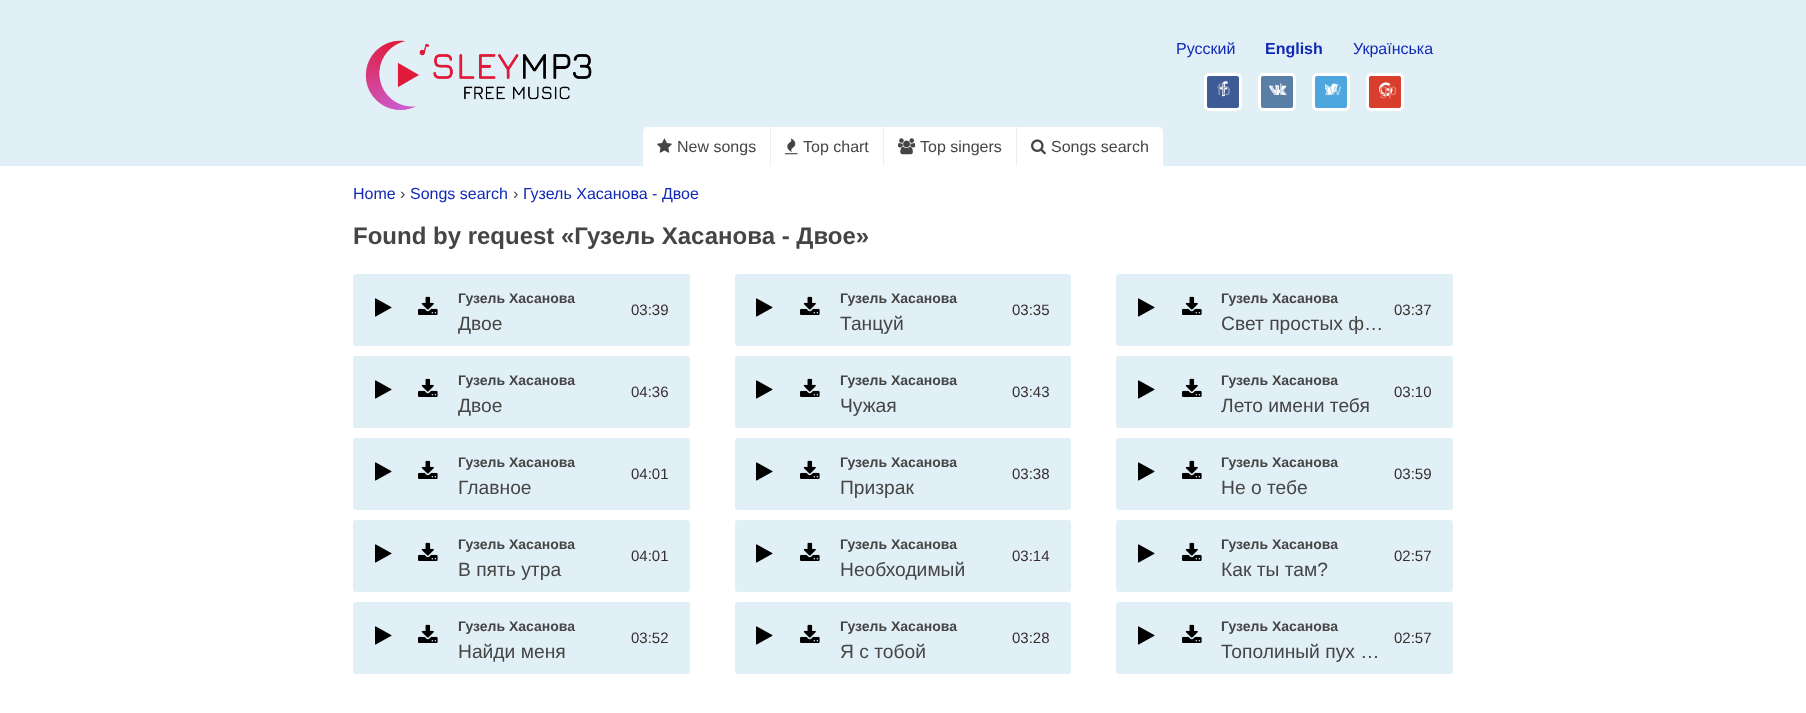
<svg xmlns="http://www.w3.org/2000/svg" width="1806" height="713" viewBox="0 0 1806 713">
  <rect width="100%" height="100%" fill="rgb(255,255,255)"/>
  <rect x="0" y="0" width="1806" height="166" fill="rgb(225,239,246)"/>
  <image x="365" y="40" width="227" height="70" href="pic1.png"/>
  <text x="1176" y="54" font-family="Liberation Sans" font-size="16" fill="rgb(16,41,181)">Русский</text>
  <text x="1265" y="54" font-family="Liberation Sans" font-size="16" font-weight="bold" fill="rgb(16,41,181)">English</text>
  <text x="1353" y="54" font-family="Liberation Sans" font-size="16" fill="rgb(16,41,181)">Українська</text>
  <rect x="1205.5" y="74.5" width="35" height="35" rx="3.5" fill="rgb(62,91,152)" stroke="rgb(255,255,255)" stroke-width="3"/>
  <image x="1219" y="81" width="9" height="16" href="pic2.png"/>
  <text x="1217" y="95" font-family="Liberation Sans" font-size="16" fill="rgb(136,154,191)">fb</text>
  <rect x="1259.5" y="74.5" width="35" height="35" rx="3.5" fill="rgb(90,127,166)" stroke="rgb(255,255,255)" stroke-width="3"/>
  <image x="1269" y="85" width="18" height="10" href="pic3.png"/>
  <text x="1271" y="95" font-family="Liberation Sans" font-size="16" fill="rgb(200,212,225)">vk</text>
  <rect x="1313.5" y="74.5" width="35" height="35" rx="3.5" fill="rgb(77,167,222)" stroke="rgb(255,255,255)" stroke-width="3"/>
  <image x="1324" y="83" width="15" height="12" href="pic4.png"/>
  <text x="1325" y="95" font-family="Liberation Sans" font-size="16" fill="rgb(175,216,240)">tw</text>
  <rect x="1367.5" y="74.5" width="35" height="35" rx="3.5" fill="rgb(217,62,45)" stroke="rgb(255,255,255)" stroke-width="3"/>
  <image x="1379" y="82" width="14" height="15" href="pic5.png"/>
  <text x="1379" y="95" font-family="Liberation Sans" font-size="16" fill="rgb(230,126,115)">gp</text>
  <path d="M648 127H770V166H643V132C643 129 645 127 648 127Z" fill="rgb(255,255,255)"/>
  <image x="657" y="138" width="15" height="15" href="pic6.png"/>
  <text x="677" y="152" font-family="Liberation Sans" font-size="16" fill="rgb(69,69,69)">New songs</text>
  <rect x="771" y="127" width="112" height="39" fill="rgb(255,255,255)"/>
  <rect x="770" y="127" width="1" height="39" fill="rgb(238,238,238)"/>
  <image x="785" y="138" width="13" height="17" href="pic7.png"/>
  <text x="803" y="152" font-family="Liberation Sans" font-size="16" fill="rgb(69,69,69)">Top chart</text>
  <rect x="884" y="127" width="132" height="39" fill="rgb(255,255,255)"/>
  <rect x="883" y="127" width="1" height="39" fill="rgb(238,238,238)"/>
  <image x="898" y="138" width="18" height="17" href="pic8.png"/>
  <text x="920" y="152" font-family="Liberation Sans" font-size="16" fill="rgb(69,69,69)">Top singers</text>
  <path d="M1016 127H1158C1161 127 1163 129 1163 132V166H1016Z" fill="rgb(255,255,255)"/>
  <rect x="1016" y="127" width="1" height="39" fill="rgb(238,238,238)"/>
  <image x="1031" y="139" width="15" height="16" href="pic9.png"/>
  <text x="1051" y="152" font-family="Liberation Sans" font-size="16" fill="rgb(69,69,69)">Songs search</text>
  <text x="353" y="199" font-family="Liberation Sans" font-size="16" fill="rgb(16,41,181)">Home</text>
  <text x="400" y="199" font-family="Liberation Sans" font-size="16" fill="rgb(69,69,69)">›</text>
  <text x="410" y="199" font-family="Liberation Sans" font-size="16" fill="rgb(16,41,181)">Songs search</text>
  <text x="513" y="199" font-family="Liberation Sans" font-size="16" fill="rgb(69,69,69)">›</text>
  <text x="523" y="199" font-family="Liberation Sans" font-size="16" fill="rgb(16,41,181)">Гузель Хасанова - Двое</text>
  <text x="353" y="244" font-family="Liberation Sans" font-size="24" font-weight="bold" fill="rgb(69,69,69)">Found by request «Гузель Хасанова - Двое»</text>
  <rect x="353" y="274" width="337" height="72" rx="3" fill="rgb(225,239,246)"/>
  <image x="375" y="298" width="17" height="19" href="pic10.png"/>
  <image x="418" y="296" width="20" height="19" href="pic11.png"/>
  <text x="458" y="303" font-family="Liberation Sans" font-size="14" font-weight="bold" fill="rgb(69,69,69)">Гузель Хасанова</text>
  <text x="458" y="330" font-family="Liberation Sans" font-size="19.25" fill="rgb(69,69,69)">Двое</text>
  <text x="631" y="315" font-family="Liberation Sans" font-size="15" fill="rgb(54,45,46)">03:39</text>
  <rect x="353" y="356" width="337" height="72" rx="3" fill="rgb(225,239,246)"/>
  <image x="375" y="380" width="17" height="19" href="pic10.png"/>
  <image x="418" y="378" width="20" height="19" href="pic11.png"/>
  <text x="458" y="385" font-family="Liberation Sans" font-size="14" font-weight="bold" fill="rgb(69,69,69)">Гузель Хасанова</text>
  <text x="458" y="412" font-family="Liberation Sans" font-size="19.25" fill="rgb(69,69,69)">Двое</text>
  <text x="631" y="397" font-family="Liberation Sans" font-size="15" fill="rgb(54,45,46)">04:36</text>
  <rect x="353" y="438" width="337" height="72" rx="3" fill="rgb(225,239,246)"/>
  <image x="375" y="462" width="17" height="19" href="pic10.png"/>
  <image x="418" y="460" width="20" height="19" href="pic11.png"/>
  <text x="458" y="467" font-family="Liberation Sans" font-size="14" font-weight="bold" fill="rgb(69,69,69)">Гузель Хасанова</text>
  <text x="458" y="494" font-family="Liberation Sans" font-size="19.25" fill="rgb(69,69,69)">Главное</text>
  <text x="631" y="479" font-family="Liberation Sans" font-size="15" fill="rgb(54,45,46)">04:01</text>
  <rect x="353" y="520" width="337" height="72" rx="3" fill="rgb(225,239,246)"/>
  <image x="375" y="544" width="17" height="19" href="pic10.png"/>
  <image x="418" y="542" width="20" height="19" href="pic11.png"/>
  <text x="458" y="549" font-family="Liberation Sans" font-size="14" font-weight="bold" fill="rgb(69,69,69)">Гузель Хасанова</text>
  <text x="458" y="576" font-family="Liberation Sans" font-size="19.25" fill="rgb(69,69,69)">В пять утра</text>
  <text x="631" y="561" font-family="Liberation Sans" font-size="15" fill="rgb(54,45,46)">04:01</text>
  <rect x="353" y="602" width="337" height="72" rx="3" fill="rgb(225,239,246)"/>
  <image x="375" y="626" width="17" height="19" href="pic10.png"/>
  <image x="418" y="624" width="20" height="19" href="pic11.png"/>
  <text x="458" y="631" font-family="Liberation Sans" font-size="14" font-weight="bold" fill="rgb(69,69,69)">Гузель Хасанова</text>
  <text x="458" y="658" font-family="Liberation Sans" font-size="19.25" fill="rgb(69,69,69)">Найди меня</text>
  <text x="631" y="643" font-family="Liberation Sans" font-size="15" fill="rgb(54,45,46)">03:52</text>
  <rect x="735" y="274" width="336" height="72" rx="3" fill="rgb(225,239,246)"/>
  <image x="756" y="298" width="17" height="19" href="pic10.png"/>
  <image x="800" y="296" width="20" height="19" href="pic11.png"/>
  <text x="840" y="303" font-family="Liberation Sans" font-size="14" font-weight="bold" fill="rgb(69,69,69)">Гузель Хасанова</text>
  <text x="840" y="330" font-family="Liberation Sans" font-size="19.25" fill="rgb(69,69,69)">Танцуй</text>
  <text x="1012" y="315" font-family="Liberation Sans" font-size="15" fill="rgb(54,45,46)">03:35</text>
  <rect x="735" y="356" width="336" height="72" rx="3" fill="rgb(225,239,246)"/>
  <image x="756" y="380" width="17" height="19" href="pic10.png"/>
  <image x="800" y="378" width="20" height="19" href="pic11.png"/>
  <text x="840" y="385" font-family="Liberation Sans" font-size="14" font-weight="bold" fill="rgb(69,69,69)">Гузель Хасанова</text>
  <text x="840" y="412" font-family="Liberation Sans" font-size="19.25" fill="rgb(69,69,69)">Чужая</text>
  <text x="1012" y="397" font-family="Liberation Sans" font-size="15" fill="rgb(54,45,46)">03:43</text>
  <rect x="735" y="438" width="336" height="72" rx="3" fill="rgb(225,239,246)"/>
  <image x="756" y="462" width="17" height="19" href="pic10.png"/>
  <image x="800" y="460" width="20" height="19" href="pic11.png"/>
  <text x="840" y="467" font-family="Liberation Sans" font-size="14" font-weight="bold" fill="rgb(69,69,69)">Гузель Хасанова</text>
  <text x="840" y="494" font-family="Liberation Sans" font-size="19.25" fill="rgb(69,69,69)">Призрак</text>
  <text x="1012" y="479" font-family="Liberation Sans" font-size="15" fill="rgb(54,45,46)">03:38</text>
  <rect x="735" y="520" width="336" height="72" rx="3" fill="rgb(225,239,246)"/>
  <image x="756" y="544" width="17" height="19" href="pic10.png"/>
  <image x="800" y="542" width="20" height="19" href="pic11.png"/>
  <text x="840" y="549" font-family="Liberation Sans" font-size="14" font-weight="bold" fill="rgb(69,69,69)">Гузель Хасанова</text>
  <text x="840" y="576" font-family="Liberation Sans" font-size="19.25" fill="rgb(69,69,69)">Необходимый</text>
  <text x="1012" y="561" font-family="Liberation Sans" font-size="15" fill="rgb(54,45,46)">03:14</text>
  <rect x="735" y="602" width="336" height="72" rx="3" fill="rgb(225,239,246)"/>
  <image x="756" y="626" width="17" height="19" href="pic10.png"/>
  <image x="800" y="624" width="20" height="19" href="pic11.png"/>
  <text x="840" y="631" font-family="Liberation Sans" font-size="14" font-weight="bold" fill="rgb(69,69,69)">Гузель Хасанова</text>
  <text x="840" y="658" font-family="Liberation Sans" font-size="19.25" fill="rgb(69,69,69)">Я с тобой</text>
  <text x="1012" y="643" font-family="Liberation Sans" font-size="15" fill="rgb(54,45,46)">03:28</text>
  <rect x="1116" y="274" width="337" height="72" rx="3" fill="rgb(225,239,246)"/>
  <image x="1138" y="298" width="17" height="19" href="pic10.png"/>
  <image x="1182" y="296" width="20" height="19" href="pic11.png"/>
  <text x="1221" y="303" font-family="Liberation Sans" font-size="14" font-weight="bold" fill="rgb(69,69,69)">Гузель Хасанова</text>
  <text x="1221" y="330" font-family="Liberation Sans" font-size="19.25" fill="rgb(69,69,69)">Свет простых ф…</text>
  <text x="1394" y="315" font-family="Liberation Sans" font-size="15" fill="rgb(54,45,46)">03:37</text>
  <rect x="1116" y="356" width="337" height="72" rx="3" fill="rgb(225,239,246)"/>
  <image x="1138" y="380" width="17" height="19" href="pic10.png"/>
  <image x="1182" y="378" width="20" height="19" href="pic11.png"/>
  <text x="1221" y="385" font-family="Liberation Sans" font-size="14" font-weight="bold" fill="rgb(69,69,69)">Гузель Хасанова</text>
  <text x="1221" y="412" font-family="Liberation Sans" font-size="19.25" fill="rgb(69,69,69)">Лето имени тебя</text>
  <text x="1394" y="397" font-family="Liberation Sans" font-size="15" fill="rgb(54,45,46)">03:10</text>
  <rect x="1116" y="438" width="337" height="72" rx="3" fill="rgb(225,239,246)"/>
  <image x="1138" y="462" width="17" height="19" href="pic10.png"/>
  <image x="1182" y="460" width="20" height="19" href="pic11.png"/>
  <text x="1221" y="467" font-family="Liberation Sans" font-size="14" font-weight="bold" fill="rgb(69,69,69)">Гузель Хасанова</text>
  <text x="1221" y="494" font-family="Liberation Sans" font-size="19.25" fill="rgb(69,69,69)">Не о тебе</text>
  <text x="1394" y="479" font-family="Liberation Sans" font-size="15" fill="rgb(54,45,46)">03:59</text>
  <rect x="1116" y="520" width="337" height="72" rx="3" fill="rgb(225,239,246)"/>
  <image x="1138" y="544" width="17" height="19" href="pic10.png"/>
  <image x="1182" y="542" width="20" height="19" href="pic11.png"/>
  <text x="1221" y="549" font-family="Liberation Sans" font-size="14" font-weight="bold" fill="rgb(69,69,69)">Гузель Хасанова</text>
  <text x="1221" y="576" font-family="Liberation Sans" font-size="19.25" fill="rgb(69,69,69)">Как ты там?</text>
  <text x="1394" y="561" font-family="Liberation Sans" font-size="15" fill="rgb(54,45,46)">02:57</text>
  <rect x="1116" y="602" width="337" height="72" rx="3" fill="rgb(225,239,246)"/>
  <image x="1138" y="626" width="17" height="19" href="pic10.png"/>
  <image x="1182" y="624" width="20" height="19" href="pic11.png"/>
  <text x="1221" y="631" font-family="Liberation Sans" font-size="14" font-weight="bold" fill="rgb(69,69,69)">Гузель Хасанова</text>
  <text x="1221" y="658" font-family="Liberation Sans" font-size="19.25" fill="rgb(69,69,69)">Тополиный пух …</text>
  <text x="1394" y="643" font-family="Liberation Sans" font-size="15" fill="rgb(54,45,46)">02:57</text>
</svg>
